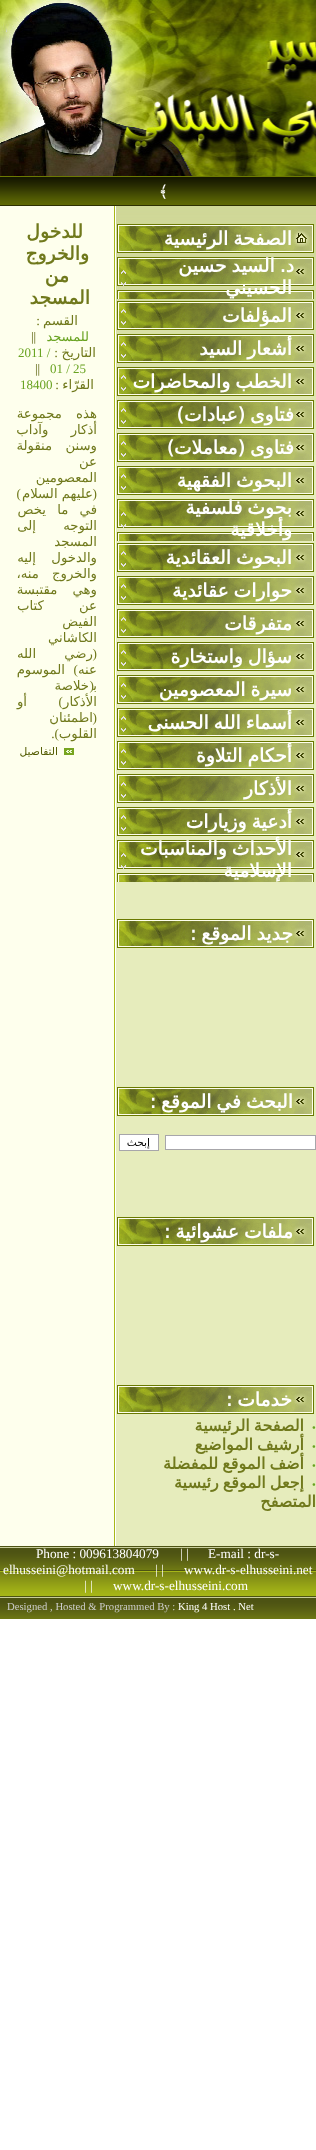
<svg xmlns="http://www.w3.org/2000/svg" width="316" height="2150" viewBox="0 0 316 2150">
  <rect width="100%" height="100%" fill="rgb(255,255,255)"/>
  <image x="0" y="0" width="316" height="176" href="pic1.png"/>
  <image x="0" y="176" width="316" height="30" href="pic2.png"/>
  <text x="168" y="197" font-family="Cascadia Code" font-size="16" font-weight="bold" direction="rtl" fill="rgb(255,255,255)">﴾</text>
  <rect x="116" y="455" width="200" height="1091" fill="rgb(230,236,188)"/>
  <image x="116" y="206" width="200" height="249" href="pic3.png"/>
  <image x="117" y="224" width="197" height="29" href="pic4.png"/>
  <text x="292" y="245" word-spacing="-1" font-family="DejaVu Sans" font-size="18.75" font-weight="bold" direction="rtl" fill="rgb(255,255,255)">الصفحة الرئيسية</text>
  <image x="117" y="257" width="197" height="42" href="pic5.png"/>
  <g font-family="DejaVu Sans" font-size="18.75" font-weight="bold" direction="rtl" fill="rgb(255,255,255)">
    <text x="294" y="272" word-spacing="-1">د. السيد حسين</text>
    <text x="292" y="294">الحسيني</text>
  </g>
  <image x="121" y="270" width="5" height="16" href="pic6.png"/>
  <image x="117" y="301" width="197" height="29" href="pic7.png"/>
  <text x="292" y="322" font-family="DejaVu Sans" font-size="18.75" font-weight="bold" direction="rtl" fill="rgb(255,255,255)">المؤلفات</text>
  <image x="121" y="309" width="5" height="16" href="pic8.png"/>
  <image x="117" y="334" width="197" height="29" href="pic7.png"/>
  <text x="292" y="355" word-spacing="-1" font-family="DejaVu Sans" font-size="18.75" font-weight="bold" direction="rtl" fill="rgb(255,255,255)">أشعار السيد</text>
  <image x="121" y="342" width="5" height="16" href="pic8.png"/>
  <image x="117" y="367" width="197" height="29" href="pic7.png"/>
  <text x="292" y="388" word-spacing="-1" font-family="DejaVu Sans" font-size="18.75" font-weight="bold" direction="rtl" fill="rgb(255,255,255)">الخطب والمحاضرات</text>
  <image x="121" y="375" width="5" height="16" href="pic8.png"/>
  <image x="117" y="400" width="197" height="29" href="pic7.png"/>
  <text x="294" y="421" word-spacing="-1" font-family="DejaVu Sans" font-size="18.75" font-weight="bold" direction="rtl" fill="rgb(255,255,255)">فتاوى (عبادات)</text>
  <image x="121" y="408" width="5" height="16" href="pic8.png"/>
  <image x="117" y="433" width="197" height="29" href="pic7.png"/>
  <text x="294" y="454" word-spacing="-1" font-family="DejaVu Sans" font-size="18.75" font-weight="bold" direction="rtl" fill="rgb(255,255,255)">فتاوى (معاملات)</text>
  <image x="121" y="441" width="5" height="16" href="pic8.png"/>
  <image x="117" y="466" width="197" height="29" href="pic7.png"/>
  <text x="292" y="487" word-spacing="-1" font-family="DejaVu Sans" font-size="18.75" font-weight="bold" direction="rtl" fill="rgb(255,255,255)">البحوث الفقهية</text>
  <image x="121" y="474" width="5" height="16" href="pic8.png"/>
  <image x="117" y="499" width="197" height="42" href="pic9.png"/>
  <g font-family="DejaVu Sans" font-size="18.75" font-weight="bold" direction="rtl" fill="rgb(255,255,255)">
    <text>
      <tspan x="292" y="514" word-spacing="-1">بحوث فلسفية</tspan>
      <tspan x="292" y="536">وأخلاقية</tspan>
    </text>
  </g>
  <image x="121" y="512" width="5" height="16" href="pic6.png"/>
  <image x="117" y="543" width="197" height="29" href="pic7.png"/>
  <text x="292" y="564" word-spacing="-1" font-family="DejaVu Sans" font-size="18.75" font-weight="bold" direction="rtl" fill="rgb(255,255,255)">البحوث العقائدية</text>
  <image x="121" y="551" width="5" height="16" href="pic8.png"/>
  <image x="117" y="576" width="197" height="29" href="pic7.png"/>
  <text x="292" y="597" word-spacing="-1" font-family="DejaVu Sans" font-size="18.75" font-weight="bold" direction="rtl" fill="rgb(255,255,255)">حوارات عقائدية</text>
  <image x="121" y="584" width="5" height="16" href="pic8.png"/>
  <image x="117" y="609" width="197" height="29" href="pic7.png"/>
  <text x="292" y="630" font-family="DejaVu Sans" font-size="18.75" font-weight="bold" direction="rtl" fill="rgb(255,255,255)">متفرقات</text>
  <image x="121" y="617" width="5" height="16" href="pic8.png"/>
  <image x="117" y="642" width="197" height="29" href="pic7.png"/>
  <text x="292" y="663" word-spacing="-1" font-family="DejaVu Sans" font-size="18.75" font-weight="bold" direction="rtl" fill="rgb(255,255,255)">سؤال واستخارة</text>
  <image x="121" y="650" width="5" height="16" href="pic8.png"/>
  <image x="117" y="675" width="197" height="29" href="pic7.png"/>
  <text x="292" y="696" word-spacing="-1" font-family="DejaVu Sans" font-size="18.75" font-weight="bold" direction="rtl" fill="rgb(255,255,255)">سيرة المعصومين</text>
  <image x="121" y="683" width="5" height="16" href="pic8.png"/>
  <image x="117" y="708" width="197" height="29" href="pic7.png"/>
  <text x="292" y="729" word-spacing="-1" font-family="DejaVu Sans" font-size="18.75" font-weight="bold" direction="rtl" fill="rgb(255,255,255)">أسماء الله الحسنى</text>
  <image x="121" y="716" width="5" height="16" href="pic8.png"/>
  <image x="117" y="741" width="197" height="29" href="pic7.png"/>
  <text x="292" y="762" word-spacing="-1" font-family="DejaVu Sans" font-size="18.75" font-weight="bold" direction="rtl" fill="rgb(255,255,255)">أحكام التلاوة</text>
  <image x="121" y="749" width="5" height="16" href="pic8.png"/>
  <image x="117" y="774" width="197" height="29" href="pic7.png"/>
  <text x="292" y="795" font-family="DejaVu Sans" font-size="18.75" font-weight="bold" direction="rtl" fill="rgb(255,255,255)">الأذكار</text>
  <image x="121" y="782" width="5" height="16" href="pic8.png"/>
  <image x="117" y="807" width="197" height="29" href="pic7.png"/>
  <text x="292" y="828" word-spacing="-1" font-family="DejaVu Sans" font-size="18.75" font-weight="bold" direction="rtl" fill="rgb(255,255,255)">أدعية وزيارات</text>
  <image x="121" y="815" width="5" height="16" href="pic8.png"/>
  <image x="117" y="840" width="197" height="42" href="pic9.png"/>
  <g font-family="DejaVu Sans" font-size="18.75" font-weight="bold" direction="rtl" fill="rgb(255,255,255)">
    <text>
      <tspan x="292" y="855" word-spacing="-1">الأحداث والمناسبات</tspan>
      <tspan x="292" y="877">الإسلامية</tspan>
    </text>
  </g>
  <image x="121" y="853" width="5" height="16" href="pic6.png"/>
  <image x="117" y="919" width="197" height="29" href="pic7.png"/>
  <text x="293" y="940" word-spacing="-1" font-family="DejaVu Sans" font-size="18.75" font-weight="bold" direction="rtl" fill="rgb(255,255,255)">جديد الموقع :</text>
  <image x="117" y="1087" width="197" height="29" href="pic7.png"/>
  <text x="293" y="1108" word-spacing="-1" font-family="DejaVu Sans" font-size="18.75" font-weight="bold" direction="rtl" fill="rgb(255,255,255)">البحث في الموقع :</text>
  <rect x="165.5" y="1135.5" width="150" height="14" fill="rgb(255,255,255)" stroke="rgb(167,166,170)"/>
  <rect x="119.5" y="1134.5" width="39" height="16" fill="rgb(255,255,255)" stroke="rgb(167,166,170)"/>
  <text x="150" y="1146" font-family="DejaVu Sans" font-size="10.7" direction="rtl" fill="rgb(0,0,0)">إبحث</text>
  <image x="117" y="1217" width="197" height="29" href="pic7.png"/>
  <text x="293" y="1238" word-spacing="-1" font-family="DejaVu Sans" font-size="18.75" font-weight="bold" direction="rtl" fill="rgb(255,255,255)">ملفات عشوائية :</text>
  <image x="117" y="1385" width="197" height="29" href="pic7.png"/>
  <text x="292" y="1406" word-spacing="-1" font-family="DejaVu Sans" font-size="18.75" font-weight="bold" direction="rtl" fill="rgb(255,255,255)">خدمات :</text>
  <text x="312" y="1431" font-family="Liberation Serif" font-size="10.7" fill="rgb(105,163,33)">•</text>
  <text x="304" y="1431" word-spacing="-1" font-family="DejaVu Sans" font-size="16" font-weight="bold" direction="rtl" fill="rgb(112,121,28)">الصفحة الرئيسية</text>
  <text x="312" y="1450" font-family="Liberation Serif" font-size="10.7" fill="rgb(105,163,33)">•</text>
  <text x="304" y="1450" word-spacing="-1" font-family="DejaVu Sans" font-size="16" font-weight="bold" direction="rtl" fill="rgb(112,121,28)">أرشيف المواضيع</text>
  <text x="312" y="1469" font-family="Liberation Serif" font-size="10.7" fill="rgb(105,163,33)">•</text>
  <text x="304" y="1469" word-spacing="-1" font-family="DejaVu Sans" font-size="16" font-weight="bold" direction="rtl" fill="rgb(112,121,28)">أضف الموقع للمفضلة</text>
  <text x="312" y="1488" font-family="Liberation Serif" font-size="10.7" fill="rgb(105,163,33)">•</text>
  <g font-family="DejaVu Sans" font-size="16" font-weight="bold" direction="rtl" fill="rgb(112,121,28)">
    <text x="304" y="1488" word-spacing="-1">إجعل الموقع رئيسية</text>
    <text x="316" y="1507">المتصفح</text>
  </g>
  <rect x="114" y="206" width="1" height="1340" fill="rgb(167,183,23)"/>
  <rect x="0" y="206" width="114" height="1340" fill="rgb(254,255,237)"/>
  <g font-family="DejaVu Sans" font-size="18.75" font-weight="bold" direction="rtl" fill="rgb(112,121,28)">
    <text x="83" y="238">للدخول</text>
    <text x="89" y="260">والخروج</text>
    <text x="69" y="282">من</text>
    <text x="90" y="304">المسجد</text>
  </g>
  <text x="78" y="325" font-family="DejaVu Sans" font-size="13.25" direction="rtl" fill="rgb(112,121,28)">القسم</text>
  <text x="40" y="325" font-family="Liberation Serif" font-size="13.25" direction="rtl" fill="rgb(112,121,28)">:</text>
  <text x="89" y="341" font-family="DejaVu Sans" font-size="13" direction="rtl" fill="rgb(105,163,33)">للمسجد</text>
  <text x="31" y="341" font-family="Liberation Serif" font-size="13" fill="rgb(82,91,0)">||</text>
  <text x="96" y="357" font-family="DejaVu Sans" font-size="13.25" direction="rtl" fill="rgb(112,121,28)">التاريخ</text>
  <text x="58" y="357" font-family="Liberation Serif" font-size="13.25" direction="rtl" fill="rgb(112,121,28)">:</text>
  <g font-family="Liberation Serif" font-size="13" fill="rgb(105,163,33)">
    <text x="18" y="357">2011 /</text>
    <text x="50" y="373">01 / 25</text>
  </g>
  <text x="35" y="373" font-family="Liberation Serif" font-size="13" fill="rgb(82,91,0)">||</text>
  <text x="94" y="389" font-family="DejaVu Sans" font-size="13.25" direction="rtl" fill="rgb(112,121,28)">القرّاء</text>
  <text x="59" y="389" font-family="Liberation Serif" font-size="13.25" direction="rtl" fill="rgb(112,121,28)">:</text>
  <text x="20" y="389" font-family="Liberation Serif" font-size="13" fill="rgb(105,163,33)">18400</text>
  <g font-family="DejaVu Sans" font-size="13.25" direction="rtl" fill="rgb(112,121,28)">
    <text>
      <tspan x="97" y="418" word-spacing="10">هذه مجموعة</tspan>
      <tspan x="97" y="434" word-spacing="18">أذكار وآداب</tspan>
      <tspan x="97" y="450" word-spacing="9">وسنن منقولة</tspan>
      <tspan x="97" y="466">عن</tspan>
      <tspan x="97" y="482">المعصومين</tspan>
    </text>
  </g>
  <text x="97" y="498" font-family="Liberation Serif" font-size="13.25" direction="rtl" fill="rgb(112,121,28)">(</text>
  <text x="93" y="498" font-family="DejaVu Sans" font-size="13.25" direction="rtl" fill="rgb(112,121,28)">عليهم السلام</text>
  <text x="21" y="498" font-family="Liberation Serif" font-size="13.25" direction="rtl" fill="rgb(112,121,28)">)</text>
  <g font-family="DejaVu Sans" font-size="13.25" direction="rtl" fill="rgb(112,121,28)">
    <text>
      <tspan x="97" y="514" word-spacing="7">في ما يخص</tspan>
      <tspan x="97" y="530" word-spacing="23">التوجه إلى</tspan>
      <tspan x="97" y="546">المسجد</tspan>
      <tspan x="97" y="562" word-spacing="11">والدخول إليه</tspan>
      <tspan x="97" y="578" word-spacing="9">والخروج منه،</tspan>
      <tspan x="97" y="594" word-spacing="11">وهي مقتبسة</tspan>
      <tspan x="97" y="610" word-spacing="31">عن كتاب</tspan>
      <tspan x="97" y="626">الفيض</tspan>
      <tspan x="97" y="642">الكاشاني</tspan>
    </text>
  </g>
  <text x="97" y="658" font-family="Liberation Serif" font-size="13.25" direction="rtl" fill="rgb(112,121,28)">(</text>
  <g font-family="DejaVu Sans" font-size="13.25" direction="rtl" fill="rgb(112,121,28)">
    <text x="93" y="658" word-spacing="24">رضي الله</text>
    <text x="97" y="674">عنه</text>
  </g>
  <text x="78" y="674" font-family="Liberation Serif" font-size="13.25" direction="rtl" fill="rgb(112,121,28)">)</text>
  <text x="65" y="674" font-family="DejaVu Sans" font-size="13.25" direction="rtl" fill="rgb(112,121,28)">الموسوم</text>
  <text x="94" y="690" font-family="Liberation Serif" font-size="13.25" direction="rtl" fill="rgb(112,121,28)">(</text>
  <g font-family="DejaVu Sans" font-size="13.25" direction="rtl" fill="rgb(112,121,28)">
    <text x="97" y="690">ﺑ</text>
    <text x="89" y="690">خلاصة</text>
  </g>
  <text x="63" y="706" font-family="Liberation Serif" font-size="13.25" direction="rtl" fill="rgb(112,121,28)">)</text>
  <g font-family="DejaVu Sans" font-size="13.25" direction="rtl" fill="rgb(112,121,28)">
    <text x="97" y="706">الأذكار</text>
    <text x="27" y="706">أو</text>
  </g>
  <text x="97" y="722" font-family="Liberation Serif" font-size="13.25" direction="rtl" fill="rgb(112,121,28)">(</text>
  <g font-family="DejaVu Sans" font-size="13.25" direction="rtl" fill="rgb(112,121,28)">
    <text x="93" y="722">اطمئنان</text>
    <text x="97" y="738">القلوب</text>
  </g>
  <text x="59" y="738" font-family="Liberation Serif" font-size="13.25" direction="rtl" fill="rgb(112,121,28)">).</text>
  <image x="64" y="748" width="10" height="7" href="pic10.png"/>
  <text x="58" y="755" font-family="DejaVu Sans" font-size="10.7" direction="rtl" fill="rgb(82,91,0)">التفاصيل</text>
  <image x="0" y="1546" width="316" height="73" href="pic11.png"/>
  <g font-family="Liberation Serif" font-size="13.25" fill="rgb(255,255,255)">
    <text x="208" y="1558">E-mail : dr-s-</text>
    <text x="180" y="1558">| |</text>
    <text x="36" y="1558">Phone : 009613804079</text>
    <text x="184" y="1574">www.dr-s-elhusseini.net</text>
    <text x="155" y="1574">| |</text>
    <text x="3" y="1574">elhusseini@hotmail.com</text>
    <text x="113" y="1590">www.dr-s-elhusseini.com</text>
    <text x="84" y="1590">| |</text>
  </g>
  <text x="178" y="1610" font-family="Liberation Serif" font-size="10.7" fill="rgb(255,255,255)">King 4 Host . Net</text>
  <text x="7" y="1610" font-family="Liberation Serif" font-size="10.7" fill="rgb(204,204,204)">Designed , Hosted &amp; Programmed By :</text>
</svg>
